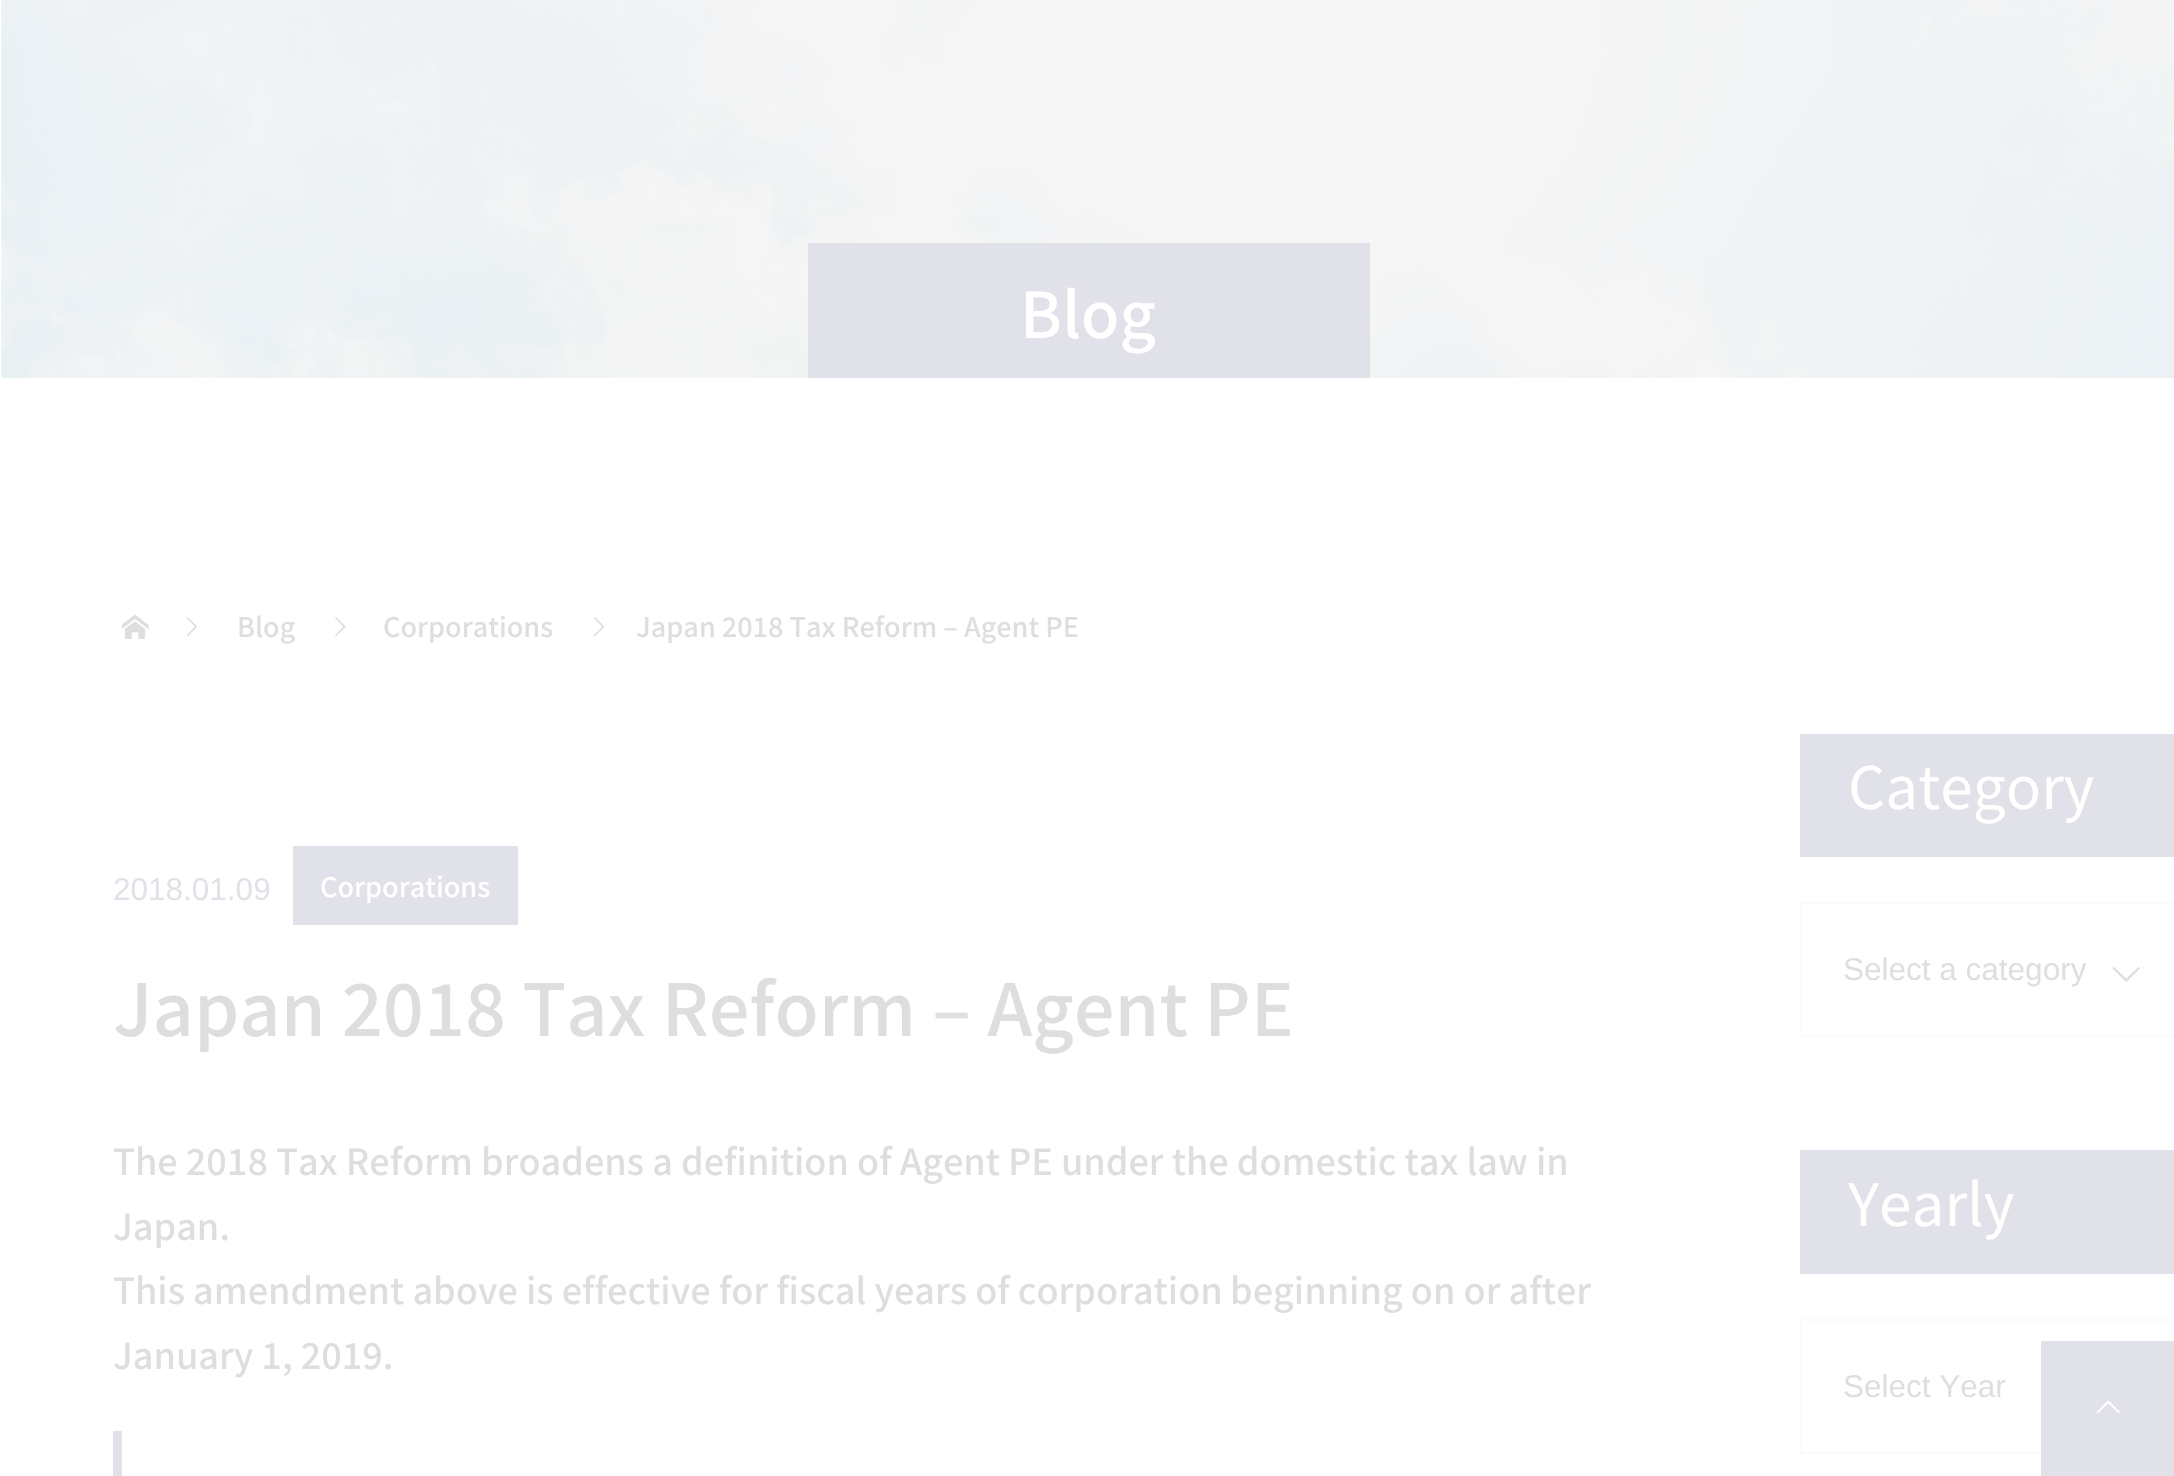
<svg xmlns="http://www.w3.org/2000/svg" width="2174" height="1476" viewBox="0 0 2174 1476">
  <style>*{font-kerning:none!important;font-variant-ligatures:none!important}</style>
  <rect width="100%" height="100%" fill="rgb(255,255,255)"/>
  <image x="1" y="0" width="2173" height="378" href="pic1.png"/>
  <rect x="808" y="243" width="562" height="135" fill="rgb(225,225,233)"/>
  <text x="1020" y="338" font-family="Noto Sans JP" font-size="63" font-weight="500" fill="rgb(255,255,255)">Blog</text>
  <image x="122" y="614" width="27" height="25" href="pic2.png"/>
  <image x="186" y="617" width="11" height="20" href="pic3.png"/>
  <text x="237" y="637" font-family="Noto Sans JP" font-size="27" font-weight="500" fill="rgb(222,222,222)">Blog</text>
  <image x="335" y="617" width="11" height="20" href="pic4.png"/>
  <text x="383" y="637" font-family="Noto Sans JP" font-size="27" font-weight="500" fill="rgb(222,222,222)">Corporations</text>
  <image x="593" y="617" width="12" height="20" href="pic5.png"/>
  <text x="636" y="637" font-family="Noto Sans JP" font-size="27" font-weight="500" fill="rgb(222,222,222)">Japan 2018 Tax Reform – Agent PE</text>
  <text x="113" y="900" font-family="Liberation Sans" font-size="31.5" fill="rgb(225,225,233)">2018.01.09</text>
  <rect x="293" y="846" width="225" height="79" fill="rgb(225,225,233)"/>
  <text x="320" y="897" font-family="Noto Sans JP" font-size="27" font-weight="500" fill="rgb(255,255,255)">Corporations</text>
  <text x="113" y="1036" font-family="Noto Sans JP" font-size="72" font-weight="500" fill="rgb(222,222,222)">Japan 2018 Tax Reform – Agent</text>
  <text x="1204" y="1036" font-family="Noto Sans JP" font-size="72" font-weight="500" fill="rgb(222,222,222)">PE</text>
  <g font-family="Noto Sans JP" font-size="36" font-weight="500" fill="rgb(222,222,222)">
    <text x="113" y="1175">The 2018 Tax Reform broadens a definition of Agent</text>
    <text x="1008" y="1175">PE under the domestic tax law in</text>
    <text>
      <tspan x="113" y="1240">Japan.</tspan>
      <tspan x="113" y="1304">This amendment above is effective for fiscal years of corporation</tspan>
    </text>
    <text x="1230" y="1304">beginning on or after</text>
    <text x="113" y="1369">January 1, 2019.</text>
  </g>
  <rect x="113" y="1431" width="9" height="45" fill="rgb(225,225,233)"/>
  <rect x="1800" y="734" width="374" height="123" fill="rgb(225,225,233)"/>
  <text x="1848" y="809" font-family="Noto Sans JP" font-size="58.5" fill="rgb(255,255,255)">Category</text>
  <rect x="1801" y="903" width="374" height="133" fill="none" stroke="rgb(251,251,251)" stroke-width="2"/>
  <text x="1843" y="980" font-family="Liberation Sans" font-size="31.5" fill="rgb(222,222,222)">Select a category</text>
  <image x="2112" y="967" width="28" height="15" href="pic6.png"/>
  <rect x="1800" y="1150" width="374" height="124" fill="rgb(225,225,233)"/>
  <text x="1848" y="1226" font-family="Noto Sans JP" font-size="58.5" fill="rgb(255,255,255)">Yearly</text>
  <rect x="1801" y="1320" width="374" height="133" fill="none" stroke="rgb(251,251,251)" stroke-width="2"/>
  <text x="1843" y="1397" font-family="Liberation Sans" font-size="31.5" fill="rgb(222,222,222)">Select Year</text>
  <rect x="2041" y="1341" width="133" height="135" fill="rgb(225,225,233)"/>
  <image x="2096" y="1400" width="24" height="14" href="pic7.png"/>
</svg>
